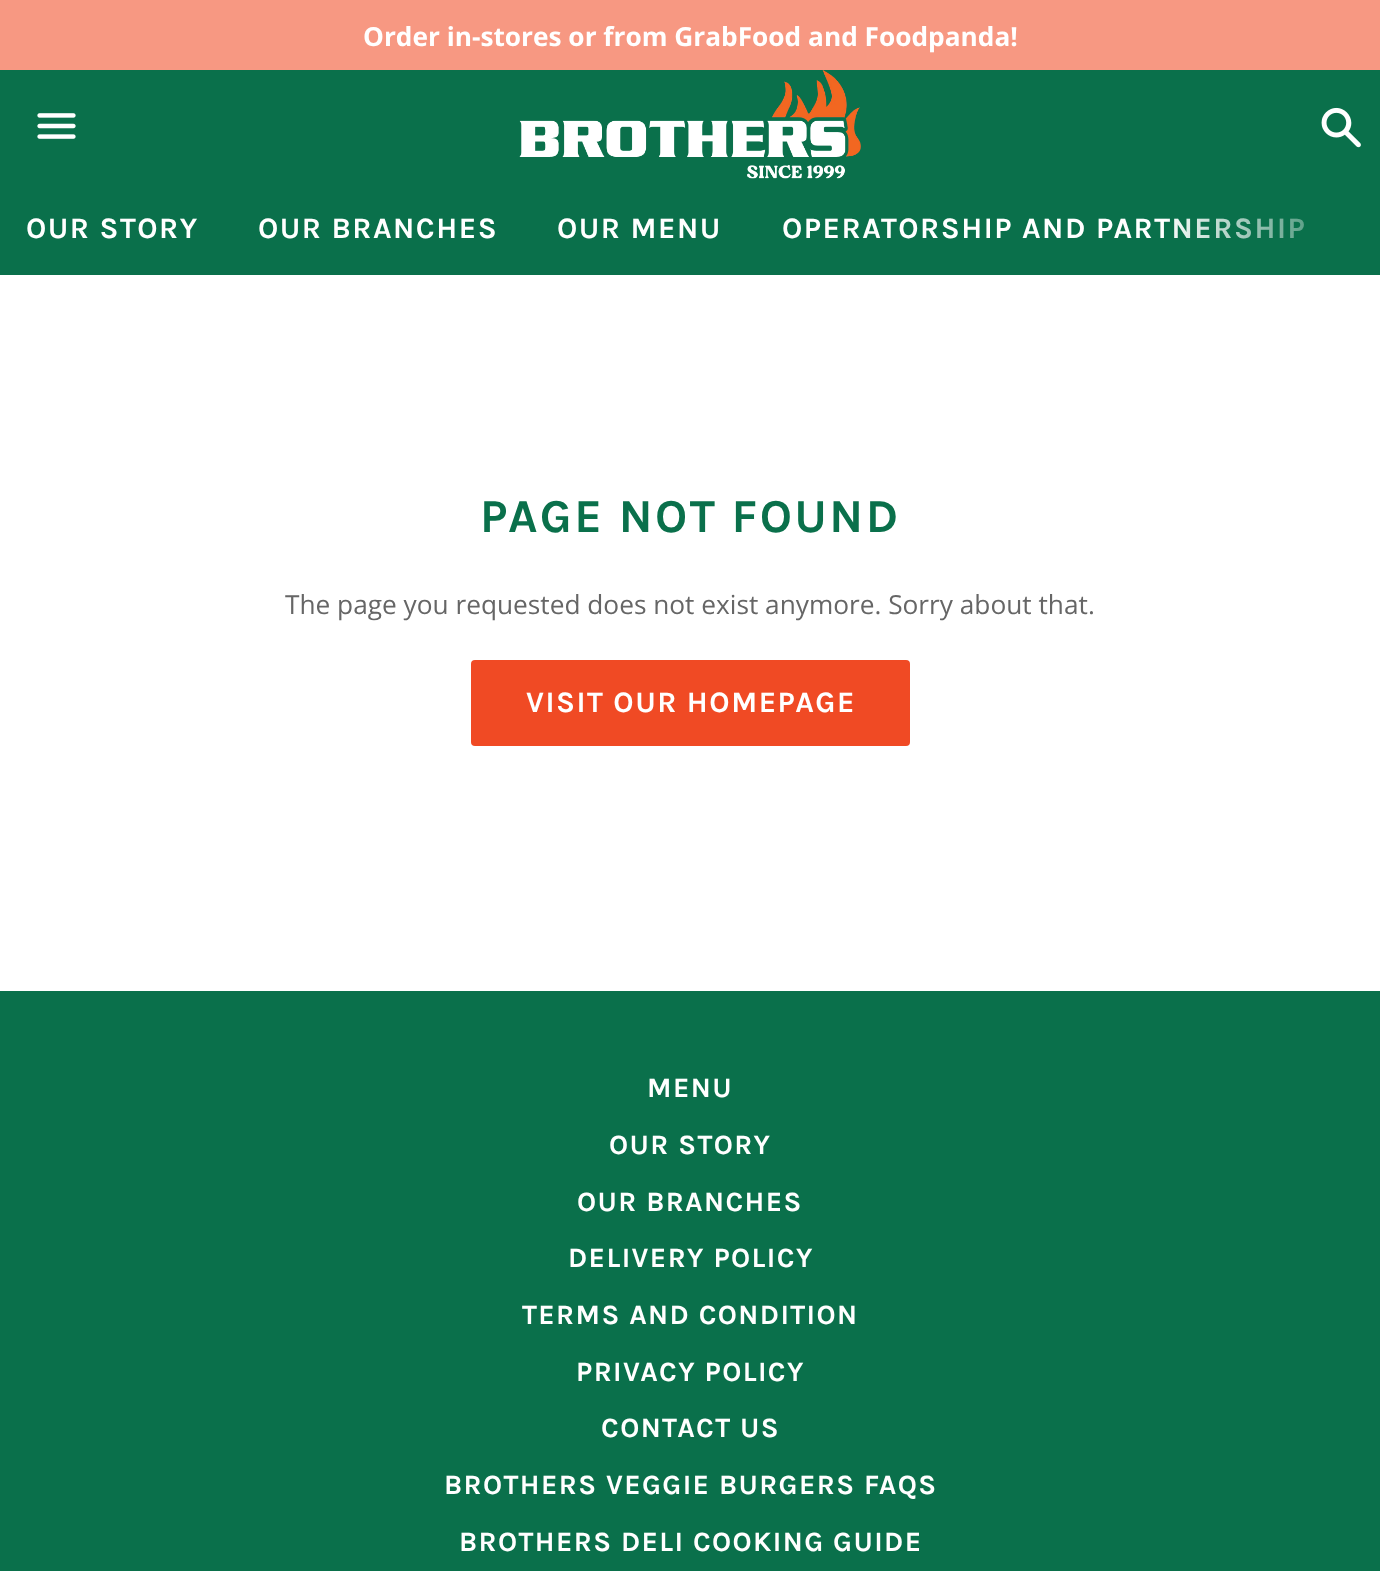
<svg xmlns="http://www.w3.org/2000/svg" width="1380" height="1571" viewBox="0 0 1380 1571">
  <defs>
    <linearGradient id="g1" gradientUnits="userSpaceOnUse" x1="1162" y1="229" x2="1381" y2="229"><stop offset="0" stop-color="rgb(10,112,75)" stop-opacity="0"/><stop offset="1" stop-color="rgb(10,112,75)"/></linearGradient>
  </defs>
  <rect width="100%" height="100%" fill="rgb(255,255,255)"/>
  <rect x="0" y="0" width="1380" height="70" fill="rgb(247,152,130)"/>
  <text x="363" y="46" font-family="Open Sans" font-size="26.25" font-weight="bold" fill="rgb(255,255,255)">Order in-stores or from GrabFood and Foodpanda!</text>
  <rect x="0" y="70" width="1380" height="205" fill="rgb(10,112,75)"/>
  <image x="37" y="113" width="39" height="26" href="pic1.png"/>
  <image x="519" y="70" width="342" height="109" href="pic2.png"/>
  <image x="1321" y="107" width="40" height="41" href="pic3.png"/>
  <g font-family="Karla" font-size="29.75" font-weight="bold" letter-spacing="1.5" fill="rgb(255,255,255)">
    <text x="26" y="238">OUR STORY</text>
    <text x="258" y="238">OUR BRANCHES</text>
    <text x="557" y="238">OUR MENU</text>
    <text x="782" y="238">OPERATORSHIP AND PARTNERSHIP</text>
  </g>
  <rect x="1167" y="218" width="137" height="21" fill="url(#g1)"/>
  <text x="480" y="532" font-family="Karla" font-size="47.25" font-weight="bold" letter-spacing="2.4" fill="rgb(10,112,75)">PAGE NOT FOUND</text>
  <text x="285" y="614" font-family="Open Sans" font-size="26.25" fill="rgb(102,102,102)">The page you requested does not exist anymore. Sorry about that.</text>
  <rect x="471" y="660" width="439" height="86" rx="4" fill="rgb(240,74,36)"/>
  <text x="526" y="712" font-family="Karla" font-size="29.75" font-weight="bold" letter-spacing="1.5" fill="rgb(255,255,255)">VISIT OUR HOMEPAGE</text>
  <rect x="0" y="991" width="1380" height="580" fill="rgb(10,112,75)"/>
  <g font-family="Karla" font-size="28" font-weight="bold" letter-spacing="1.4" fill="rgb(255,255,255)">
    <text x="647" y="1097">MENU</text>
    <text x="609" y="1154">OUR STORY</text>
    <text x="577" y="1211">OUR BRANCHES</text>
    <text x="568" y="1267">DELIVERY POLICY</text>
    <text x="522" y="1324">TERMS AND CONDITION</text>
    <text x="576" y="1381">PRIVACY POLICY</text>
    <text x="601" y="1437">CONTACT US</text>
    <text x="444" y="1494">BROTHERS VEGGIE BURGERS FAQS</text>
    <text x="459" y="1551">BROTHERS DELI COOKING GUIDE</text>
  </g>
</svg>
